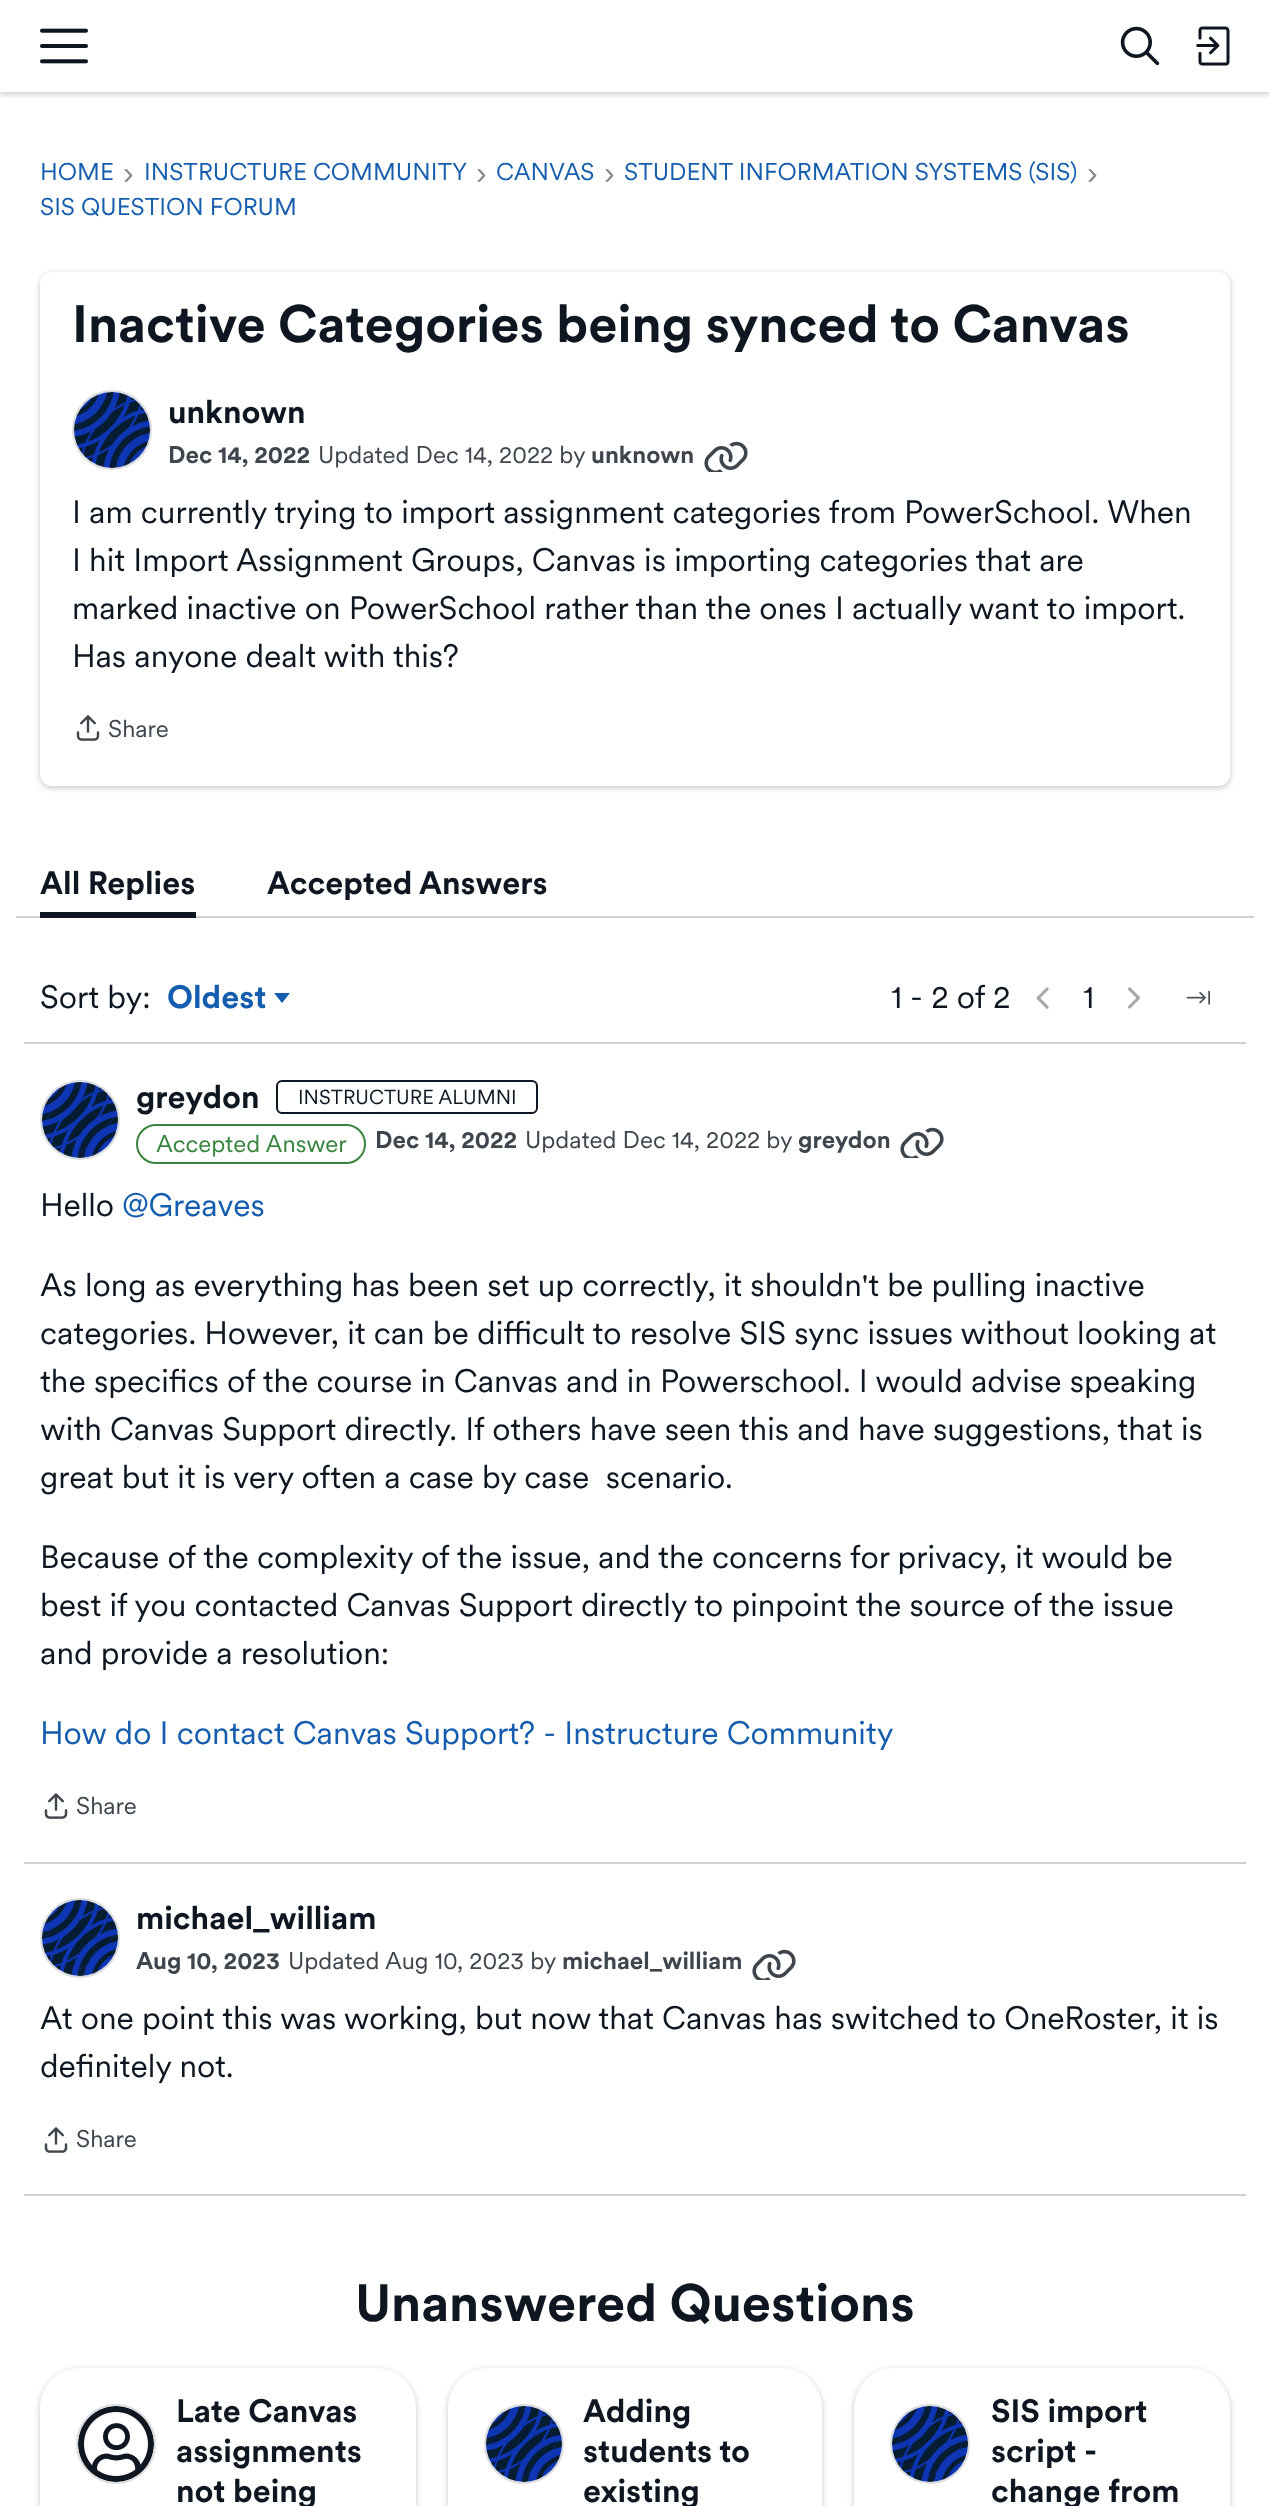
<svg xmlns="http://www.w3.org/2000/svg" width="1270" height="2506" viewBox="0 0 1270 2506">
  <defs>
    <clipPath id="clip1"><rect x="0" y="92" width="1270" height="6"/></clipPath>
  </defs>
  <rect width="100%" height="100%" fill="rgb(255,255,255)"/>
  <g clip-path="url(#clip1)">
    <rect x="0" y="2" width="1270" height="92" fill="rgba(0,0,0,0.22)" filter="blur(3px)"/>
  </g>
  <image x="40" y="28" width="48" height="36" href="pic1.png"/>
  <image x="1120" y="26" width="40" height="40" href="pic2.png"/>
  <image x="1196" y="26" width="34" height="40" href="pic3.png"/>
  <text x="40" y="180" font-family="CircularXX" font-size="24" fill="rgb(21,93,174)">HOME</text>
  <text x="123" y="184" font-family="Liberation Sans" font-size="32" fill="rgb(135,139,144)">›</text>
  <text x="144" y="180" font-family="CircularXX" font-size="24" fill="rgb(21,93,174)">INSTRUCTURE COMMUNITY</text>
  <text x="476" y="184" font-family="Liberation Sans" font-size="32" fill="rgb(135,139,144)">›</text>
  <text x="496" y="180" font-family="CircularXX" font-size="24" fill="rgb(21,93,174)">CANVAS</text>
  <text x="604" y="184" font-family="Liberation Sans" font-size="32" fill="rgb(135,139,144)">›</text>
  <text x="624" y="180" font-family="CircularXX" font-size="24" fill="rgb(21,93,174)">STUDENT INFORMATION SYSTEMS (SIS)</text>
  <text x="1087" y="184" font-family="Liberation Sans" font-size="32" fill="rgb(135,139,144)">›</text>
  <text x="40" y="215" font-family="CircularXX" font-size="24" fill="rgb(21,93,174)">SIS QUESTION FORUM</text>
  <rect x="40" y="274" width="1190" height="514" rx="12" fill="rgba(0,0,0,0.22)" filter="blur(3px)"/>
  <rect x="40" y="272" width="1190" height="514" rx="12" fill="rgb(255,255,255)"/>
  <text x="72" y="342" font-family="CircularXX" font-size="52" font-weight="bold" fill="rgb(14,23,33)">Inactive Categories being synced to Canvas</text>
  <circle cx="112" cy="430" r="39" fill="none" stroke="rgb(219,220,222)" stroke-width="2"/>
  <image x="74" y="392" width="76" height="76" href="pic4.png"/>
  <text x="168" y="423" font-family="CircularXX" font-size="32" font-weight="bold" fill="rgb(14,23,33)">unknown</text>
  <text x="168" y="463" font-family="CircularXX" font-size="24" font-weight="bold" fill="rgb(62,69,77)">Dec 14, 2022</text>
  <text x="318" y="463" font-family="CircularXX" font-size="24" fill="rgb(62,69,77)">Updated Dec 14, 2022 by</text>
  <text x="591" y="463" font-family="CircularXX" font-size="24" font-weight="bold" fill="rgb(62,69,77)">unknown</text>
  <image x="704" y="441" width="44" height="31" href="pic5.png"/>
  <g font-family="CircularXX" font-size="32" fill="rgb(14,23,33)">
    <text>
      <tspan x="72" y="523">I am currently trying to import assignment categories from PowerSchool. When</tspan>
      <tspan x="72" y="571">I hit Import Assignment Groups, Canvas is importing categories that are</tspan>
      <tspan x="72" y="619">marked inactive on PowerSchool rather than the ones I actually want to import.</tspan>
      <tspan x="72" y="667">Has anyone dealt with this?</tspan>
    </text>
  </g>
  <image x="76" y="715" width="24" height="26" href="pic6.png"/>
  <text x="108" y="737" font-family="CircularXX" font-size="24" fill="rgb(62,69,77)">Share</text>
  <rect x="16" y="916" width="1238" height="2" fill="rgb(207,209,211)"/>
  <text x="40" y="894" font-family="CircularXX" font-size="32" font-weight="bold" fill="rgb(14,23,33)">All Replies</text>
  <rect x="40" y="912" width="156" height="6" fill="rgb(14,23,33)"/>
  <text x="267" y="894" font-family="CircularXX" font-size="32" font-weight="bold" fill="rgb(14,23,33)">Accepted Answers</text>
  <text x="40" y="1008" font-family="CircularXX" font-size="32" fill="rgb(14,23,33)">Sort by:</text>
  <text x="167" y="1008" font-family="CircularXX" font-size="32" font-weight="bold" fill="rgb(21,93,174)">Oldest</text>
  <path d="M274 993H290L282 1003Z" fill="rgb(21,93,174)"/>
  <text x="891" y="1008" font-family="CircularXX" font-size="32" fill="rgb(14,23,33)">1 - 2 of 2</text>
  <image x="1036" y="987" width="13" height="22" href="pic7.png"/>
  <text x="1083" y="1008" font-family="CircularXX" font-size="32" fill="rgb(14,23,33)">1</text>
  <image x="1128" y="987" width="12" height="22" href="pic8.png"/>
  <image x="1186" y="990" width="24" height="15" href="pic9.png"/>
  <rect x="24" y="1042" width="1222" height="2" fill="rgb(207,209,211)"/>
  <circle cx="80" cy="1120" r="39" fill="none" stroke="rgb(219,220,222)" stroke-width="2"/>
  <image x="42" y="1082" width="76" height="76" href="pic10.png"/>
  <text x="136" y="1108" font-family="CircularXX" font-size="32" font-weight="bold" fill="rgb(14,23,33)">greydon</text>
  <rect x="277" y="1081" width="260" height="32" rx="5" fill="none" stroke="rgb(14,23,33)" stroke-width="2"/>
  <text x="298" y="1104" font-family="CircularXX" font-size="20" fill="rgb(14,23,33)">INSTRUCTURE ALUMNI</text>
  <rect x="137" y="1125" width="228" height="38" rx="19" fill="none" stroke="rgb(56,133,61)" stroke-width="2"/>
  <text x="156" y="1152" font-family="CircularXX" font-size="24" fill="rgb(56,133,61)">Accepted Answer</text>
  <text x="375" y="1148" font-family="CircularXX" font-size="24" font-weight="bold" fill="rgb(62,69,77)">Dec 14, 2022</text>
  <text x="525" y="1148" font-family="CircularXX" font-size="24" fill="rgb(62,69,77)">Updated Dec 14, 2022 by</text>
  <text x="798" y="1148" font-family="CircularXX" font-size="24" font-weight="bold" fill="rgb(62,69,77)">greydon</text>
  <image x="900" y="1127" width="44" height="31" href="pic5.png"/>
  <text x="40" y="1216" font-family="CircularXX" font-size="32" fill="rgb(14,23,33)">Hello</text>
  <text x="122" y="1216" font-family="CircularXX" font-size="32" fill="rgb(21,93,174)">@Greaves</text>
  <g font-family="CircularXX" font-size="32" fill="rgb(14,23,33)">
    <text xml:space="preserve"><tspan x="40" y="1296">As long as everything has been set up correctly, it shouldn't be pulling inactive</tspan><tspan x="40" y="1344">categories. However, it can be difficult to resolve SIS sync issues without looking at</tspan><tspan x="40" y="1392">the specifics of the course in Canvas and in Powerschool. I would advise speaking</tspan><tspan x="40" y="1440">with Canvas Support directly. If others have seen this and have suggestions, that is</tspan><tspan x="40" y="1488">great but it is very often a case by case  scenario.</tspan></text>
    <text>
      <tspan x="40" y="1568">Because of the complexity of the issue, and the concerns for privacy, it would be</tspan>
      <tspan x="40" y="1616">best if you contacted Canvas Support directly to pinpoint the source of the issue</tspan>
      <tspan x="40" y="1664">and provide a resolution:</tspan>
    </text>
  </g>
  <text x="40" y="1744" font-family="CircularXX" font-size="32" fill="rgb(21,93,174)">How do I contact Canvas Support? - Instructure Community</text>
  <image x="44" y="1793" width="24" height="26" href="pic6.png"/>
  <text x="76" y="1814" font-family="CircularXX" font-size="24" fill="rgb(62,69,77)">Share</text>
  <rect x="24" y="1862" width="1222" height="2" fill="rgb(207,209,211)"/>
  <circle cx="80" cy="1938" r="39" fill="none" stroke="rgb(219,220,222)" stroke-width="2"/>
  <image x="42" y="1900" width="76" height="76" href="pic11.png"/>
  <text x="136" y="1929" font-family="CircularXX" font-size="32" font-weight="bold" fill="rgb(14,23,33)">michael_william</text>
  <text x="136" y="1969" font-family="CircularXX" font-size="24" font-weight="bold" fill="rgb(62,69,77)">Aug 10, 2023</text>
  <g font-family="CircularXX" font-size="24" fill="rgb(62,69,77)">
    <text x="288" y="1969">Updated</text>
    <text x="385" y="1969">Aug 10, 2023 by</text>
  </g>
  <text x="562" y="1969" font-family="CircularXX" font-size="24" font-weight="bold" fill="rgb(62,69,77)">michael_william</text>
  <image x="752" y="1949" width="44" height="31" href="pic5.png"/>
  <g font-family="CircularXX" font-size="32" fill="rgb(14,23,33)">
    <text>
      <tspan x="40" y="2029">At one point this was working, but now that Canvas has switched to OneRoster, it is</tspan>
      <tspan x="40" y="2077">definitely not.</tspan>
    </text>
  </g>
  <image x="44" y="2127" width="24" height="26" href="pic6.png"/>
  <text x="76" y="2147" font-family="CircularXX" font-size="24" fill="rgb(62,69,77)">Share</text>
  <rect x="24" y="2194" width="1222" height="2" fill="rgb(207,209,211)"/>
  <text x="355" y="2321" font-family="CircularXX" font-size="52" font-weight="bold" fill="rgb(14,23,33)">Unanswered Questions</text>
  <rect x="40" y="2370" width="376" height="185" rx="40" fill="rgba(0,0,0,0.22)" filter="blur(3px)"/>
  <rect x="40" y="2368" width="376" height="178" rx="40" fill="rgb(255,255,255)"/>
  <circle cx="116" cy="2444" r="39" fill="none" stroke="rgb(219,220,222)" stroke-width="2"/>
  <image x="78" y="2406" width="76" height="76" href="pic12.png"/>
  <g font-family="CircularXX" font-size="32" font-weight="bold" fill="rgb(14,23,33)">
    <text>
      <tspan x="176" y="2422">Late Canvas</tspan>
      <tspan x="176" y="2462">assignments</tspan>
      <tspan x="176" y="2502">not being</tspan>
    </text>
  </g>
  <rect x="448" y="2370" width="374" height="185" rx="40" fill="rgba(0,0,0,0.22)" filter="blur(3px)"/>
  <rect x="448" y="2368" width="374" height="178" rx="40" fill="rgb(255,255,255)"/>
  <circle cx="524" cy="2444" r="39" fill="none" stroke="rgb(219,220,222)" stroke-width="2"/>
  <image x="486" y="2406" width="76" height="76" href="pic13.png"/>
  <g font-family="CircularXX" font-size="32" font-weight="bold" fill="rgb(14,23,33)">
    <text>
      <tspan x="583" y="2422">Adding</tspan>
      <tspan x="583" y="2462">students to</tspan>
      <tspan x="583" y="2502">existing</tspan>
    </text>
  </g>
  <rect x="854" y="2370" width="376" height="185" rx="40" fill="rgba(0,0,0,0.22)" filter="blur(3px)"/>
  <rect x="854" y="2368" width="376" height="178" rx="40" fill="rgb(255,255,255)"/>
  <circle cx="930" cy="2444" r="39" fill="none" stroke="rgb(219,220,222)" stroke-width="2"/>
  <image x="892" y="2406" width="76" height="76" href="pic14.png"/>
  <g font-family="CircularXX" font-size="32" font-weight="bold" fill="rgb(14,23,33)">
    <text>
      <tspan x="991" y="2422">SIS import</tspan>
      <tspan x="991" y="2462">script -</tspan>
      <tspan x="991" y="2502">change from</tspan>
    </text>
  </g>
</svg>
